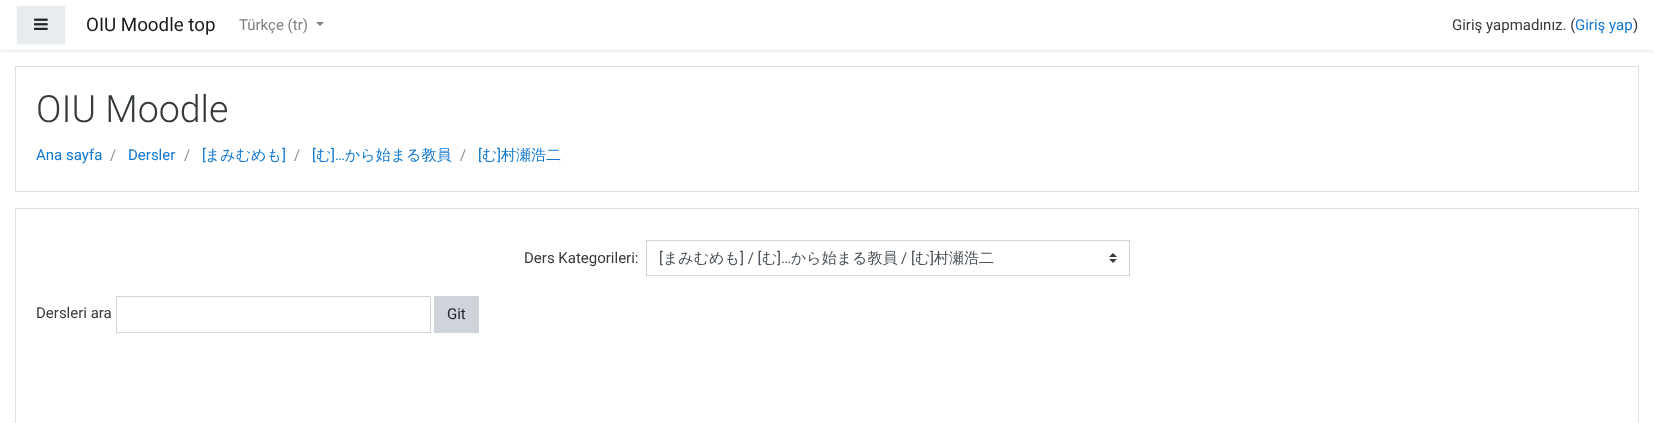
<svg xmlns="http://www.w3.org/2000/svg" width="1654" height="423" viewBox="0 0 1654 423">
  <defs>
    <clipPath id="clip1"><rect x="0" y="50" width="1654" height="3"/></clipPath>
  </defs>
  <rect width="100%" height="100%" fill="rgb(255,255,255)"/>
  <g clip-path="url(#clip1)">
    <rect x="0" y="2" width="1654" height="50" fill="rgba(0,0,0,0.08)" filter="blur(2px)"/>
  </g>
  <rect x="16.5" y="5.5" width="49" height="39" fill="rgb(233,236,239)" stroke="rgb(248,249,250)"/>
  <image x="34" y="18" width="14" height="12" href="pic1.png"/>
  <text x="86" y="31" font-family="Roboto" font-size="18.75" fill="rgb(26,26,26)">OIU Moodle top</text>
  <text x="239" y="30" font-family="Roboto" font-size="15" fill="rgb(128,128,128)">Türkçe (tr)</text>
  <path d="M316 22H324L320 26Z" fill="rgb(128,128,128)"/>
  <text x="1452" y="30" font-family="Roboto" font-size="15" fill="rgb(55,58,60)">Giriş yapmadınız. (</text>
  <text x="1575" y="30" font-family="Roboto" font-size="15" fill="rgb(17,119,209)">Giriş yap</text>
  <text x="1633" y="30" font-family="Roboto" font-size="15" fill="rgb(55,58,60)">)</text>
  <rect x="15.5" y="66.5" width="1623" height="125" fill="none" stroke="rgb(223,223,223)"/>
  <text x="36" y="122" font-family="Roboto" font-size="37.5" font-weight="300" fill="rgb(55,58,60)">OIU Moodle</text>
  <text x="36" y="160" font-family="Roboto" font-size="15" fill="rgb(17,119,209)">Ana sayfa</text>
  <text x="110" y="160" font-family="Roboto" font-size="15" fill="rgb(134,142,150)">/</text>
  <text x="128" y="160" font-family="Roboto" font-size="15" fill="rgb(17,119,209)">Dersler</text>
  <text x="184" y="160" font-family="Roboto" font-size="15" fill="rgb(134,142,150)">/</text>
  <text x="202" y="160" font-family="Roboto" font-size="15" fill="rgb(17,119,209)">[</text>
  <text x="205" y="160" font-family="WenQuanYi Zen Hei" font-size="15" font-weight="500" fill="rgb(17,119,209)">まみむめも</text>
  <text x="282" y="160" font-family="Roboto" font-size="15" fill="rgb(17,119,209)">]</text>
  <text x="294" y="160" font-family="Roboto" font-size="15" fill="rgb(134,142,150)">/</text>
  <text x="312" y="160" font-family="Roboto" font-size="15" fill="rgb(17,119,209)">[</text>
  <text x="316" y="160" font-family="WenQuanYi Zen Hei" font-size="15" font-weight="500" fill="rgb(17,119,209)">む</text>
  <text x="331" y="160" font-family="Roboto" font-size="15" fill="rgb(17,119,209)">]…</text>
  <text x="345" y="160" font-family="WenQuanYi Zen Hei" font-size="15" font-weight="500" fill="rgb(17,119,209)">から始まる教員</text>
  <text x="460" y="160" font-family="Roboto" font-size="15" fill="rgb(134,142,150)">/</text>
  <text x="478" y="160" font-family="Roboto" font-size="15" fill="rgb(17,119,209)">[</text>
  <text x="482" y="160" font-family="WenQuanYi Zen Hei" font-size="15" font-weight="500" fill="rgb(17,119,209)">む</text>
  <text x="497" y="160" font-family="Roboto" font-size="15" fill="rgb(17,119,209)">]</text>
  <text x="501" y="160" font-family="WenQuanYi Zen Hei" font-size="15" font-weight="500" fill="rgb(17,119,209)">村瀬浩二</text>
  <rect x="15.5" y="208.5" width="1623" height="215" fill="none" stroke="rgb(223,223,223)"/>
  <text x="524" y="263" font-family="Roboto" font-size="15" fill="rgb(55,58,60)">Ders Kategorileri:</text>
  <image x="1109" y="253" width="8" height="10" href="pic2.png"/>
  <rect x="646.5" y="240.5" width="483" height="35" fill="none" stroke="rgb(206,212,218)"/>
  <text x="659" y="263" font-family="Roboto" font-size="15" fill="rgb(73,80,87)">[</text>
  <text x="663" y="263" font-family="WenQuanYi Zen Hei" font-size="15" font-weight="500" fill="rgb(73,80,87)">まみむめも</text>
  <text x="740" y="263" font-family="Roboto" font-size="15" fill="rgb(73,80,87)">] / [</text>
  <text x="762" y="263" font-family="WenQuanYi Zen Hei" font-size="15" font-weight="500" fill="rgb(73,80,87)">む</text>
  <text x="777" y="263" font-family="Roboto" font-size="15" fill="rgb(73,80,87)">]…</text>
  <text x="791" y="263" font-family="WenQuanYi Zen Hei" font-size="15" font-weight="500" fill="rgb(73,80,87)">から始まる教員</text>
  <text x="901" y="263" font-family="Roboto" font-size="15" fill="rgb(73,80,87)">/ [</text>
  <text x="915" y="263" font-family="WenQuanYi Zen Hei" font-size="15" font-weight="500" fill="rgb(73,80,87)">む</text>
  <text x="930" y="263" font-family="Roboto" font-size="15" fill="rgb(73,80,87)">]</text>
  <text x="934" y="263" font-family="WenQuanYi Zen Hei" font-size="15" font-weight="500" fill="rgb(73,80,87)">村瀬浩二</text>
  <text x="36" y="318" font-family="Roboto" font-size="15" fill="rgb(55,58,60)">Dersleri ara</text>
  <rect x="116.5" y="296.5" width="314" height="36" fill="none" stroke="rgb(206,212,218)"/>
  <rect x="434" y="296" width="45" height="37" fill="rgb(206,212,218)"/>
  <text x="447" y="319" font-family="Roboto" font-size="15" fill="rgb(33,37,41)">Git</text>
</svg>
